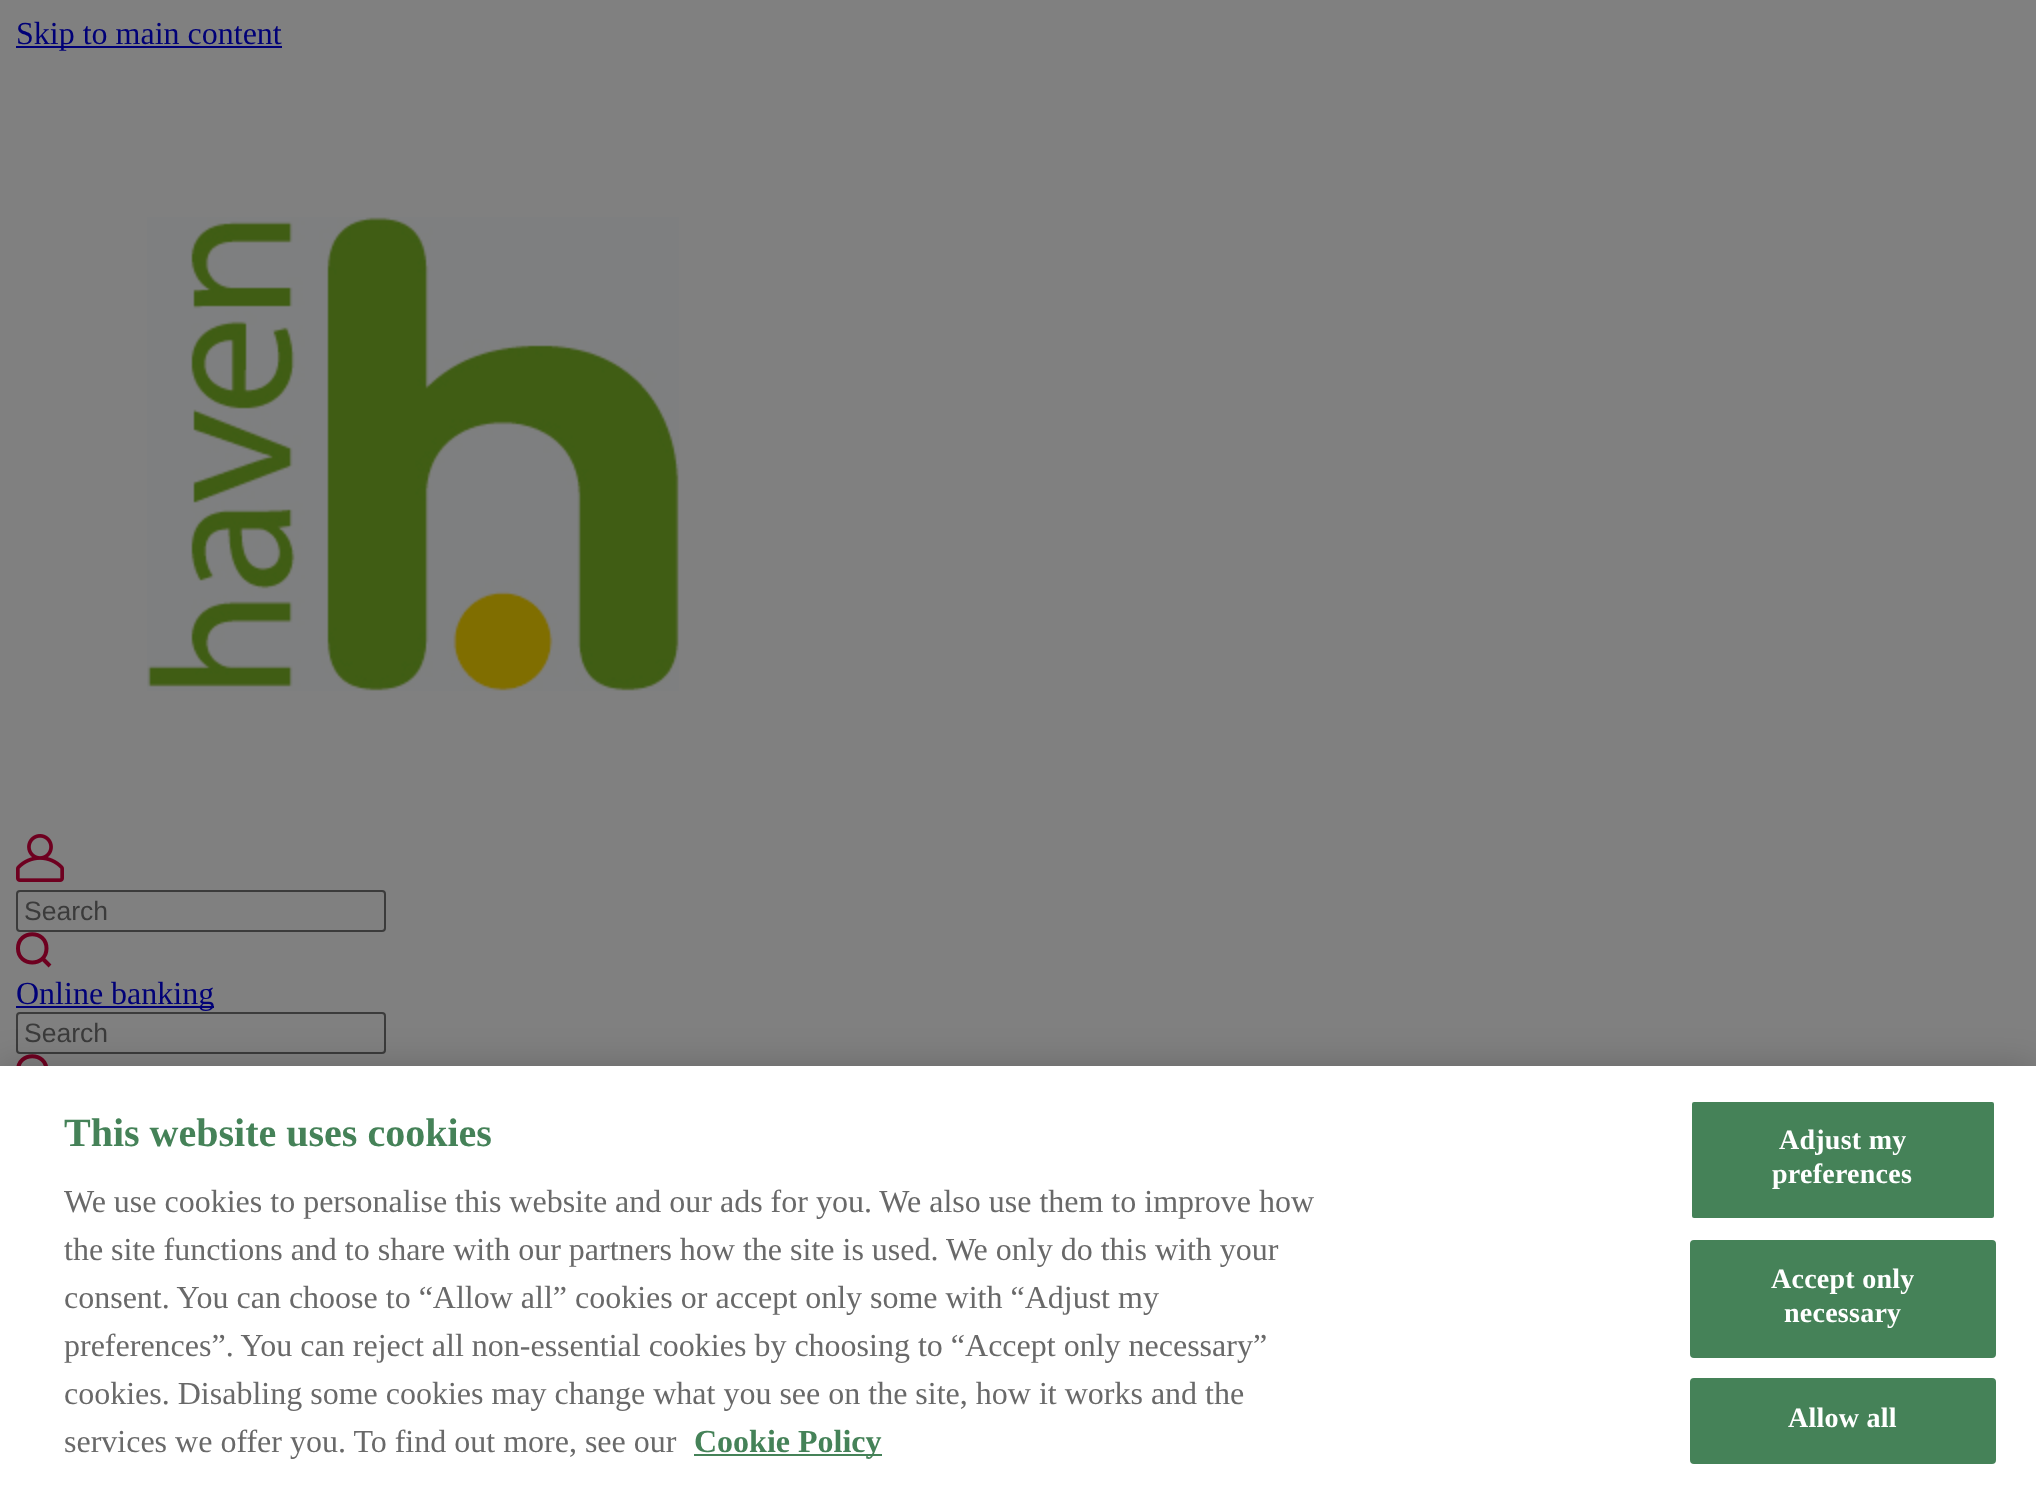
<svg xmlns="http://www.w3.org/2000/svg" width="2036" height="1486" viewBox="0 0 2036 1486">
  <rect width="100%" height="100%" fill="rgb(128,128,128)"/>
  <rect x="16" y="46" width="266" height="2" fill="rgb(0,0,119)"/>
  <text x="16" y="44" font-family="Liberation Serif" font-size="32" fill="rgb(0,0,119)">Skip to main content</text>
  <image x="147" y="217" width="532" height="474" href="pic1.png"/>
  <image x="16" y="834" width="48" height="48" href="pic2.png"/>
  <rect x="17" y="891" width="368" height="40" rx="3" fill="none" stroke="rgb(59,59,59)" stroke-width="2"/>
  <text x="24" y="920" font-family="Liberation Sans" font-size="26.5" fill="rgb(59,59,59)">Search</text>
  <path d="M50 966L42.5 958.5ZM46.5 948.5C46.5 967 18 967 18 948.5C18 929.5 46.5 929.5 46.5 948.5Z" fill="none" stroke="rgb(110,0,32)" stroke-width="4" stroke-linecap="round"/>
  <rect x="16" y="1006" width="198" height="2" fill="rgb(0,0,119)"/>
  <text x="16" y="1004" font-family="Liberation Serif" font-size="32" fill="rgb(0,0,119)">Online banking</text>
  <rect x="17" y="1013" width="368" height="40" rx="3" fill="none" stroke="rgb(59,59,59)" stroke-width="2"/>
  <text x="24" y="1042" font-family="Liberation Sans" font-size="26.5" fill="rgb(59,59,59)">Search</text>
  <path d="M50 1088L42.5 1080.5ZM46.5 1070.5C46.5 1089 18 1089 18 1070.5C18 1051.5 46.5 1051.5 46.5 1070.5Z" fill="none" stroke="rgb(110,0,32)" stroke-width="4" stroke-linecap="round"/>
  <rect x="0" y="1066" width="2036" height="420" fill="rgba(0,0,0,0.2)" filter="blur(18px)"/>
  <rect x="0" y="1066" width="2036" height="420" fill="rgb(255,255,255)"/>
  <text x="64" y="1146" font-family="Liberation Serif" font-size="40" font-weight="bold" fill="rgb(69,130,88)">This website uses cookies</text>
  <g font-family="Liberation Serif" font-size="32" fill="rgb(105,105,105)">
    <text>
      <tspan x="64" y="1212">We use cookies to personalise this website and our ads for you. We also use them to improve how</tspan>
      <tspan x="64" y="1260">the site functions and to share with our partners how the site is used. We only do this with your</tspan>
      <tspan x="64" y="1308">consent. You can choose to “Allow all” cookies or accept only some with “Adjust my</tspan>
      <tspan x="64" y="1356">preferences”. You can reject all non-essential cookies by choosing to “Accept only necessary”</tspan>
      <tspan x="64" y="1404">cookies. Disabling some cookies may change what you see on the site, how it works and the</tspan>
      <tspan x="64" y="1452">services we offer you. To find out more, see our</tspan>
    </text>
  </g>
  <rect x="694" y="1454" width="188" height="2" fill="rgb(69,130,88)"/>
  <text x="694" y="1452" font-family="Liberation Serif" font-size="32" font-weight="bold" fill="rgb(69,130,88)">Cookie Policy</text>
  <rect x="1691" y="1101" width="304" height="118" rx="3" fill="rgb(69,130,88)" stroke="rgb(255,255,255)" stroke-width="2"/>
  <g font-family="Liberation Serif" font-size="28" font-weight="bold" letter-spacing="0.25" fill="rgb(255,255,255)">
    <text x="1779" y="1149">Adjust my</text>
    <text x="1772" y="1183">preferences</text>
  </g>
  <rect x="1691" y="1241" width="304" height="116" rx="3" fill="rgb(69,130,88)" stroke="rgb(69,130,88)" stroke-width="2"/>
  <g font-family="Liberation Serif" font-size="28" font-weight="bold" letter-spacing="0.25" fill="rgb(255,255,255)">
    <text x="1771" y="1288">Accept only</text>
    <text x="1784" y="1322">necessary</text>
  </g>
  <rect x="1691" y="1379" width="304" height="84" rx="3" fill="rgb(69,130,88)" stroke="rgb(69,130,88)" stroke-width="2"/>
  <text x="1788" y="1427" font-family="Liberation Serif" font-size="28" font-weight="bold" letter-spacing="0.25" fill="rgb(255,255,255)">Allow all</text>
</svg>
